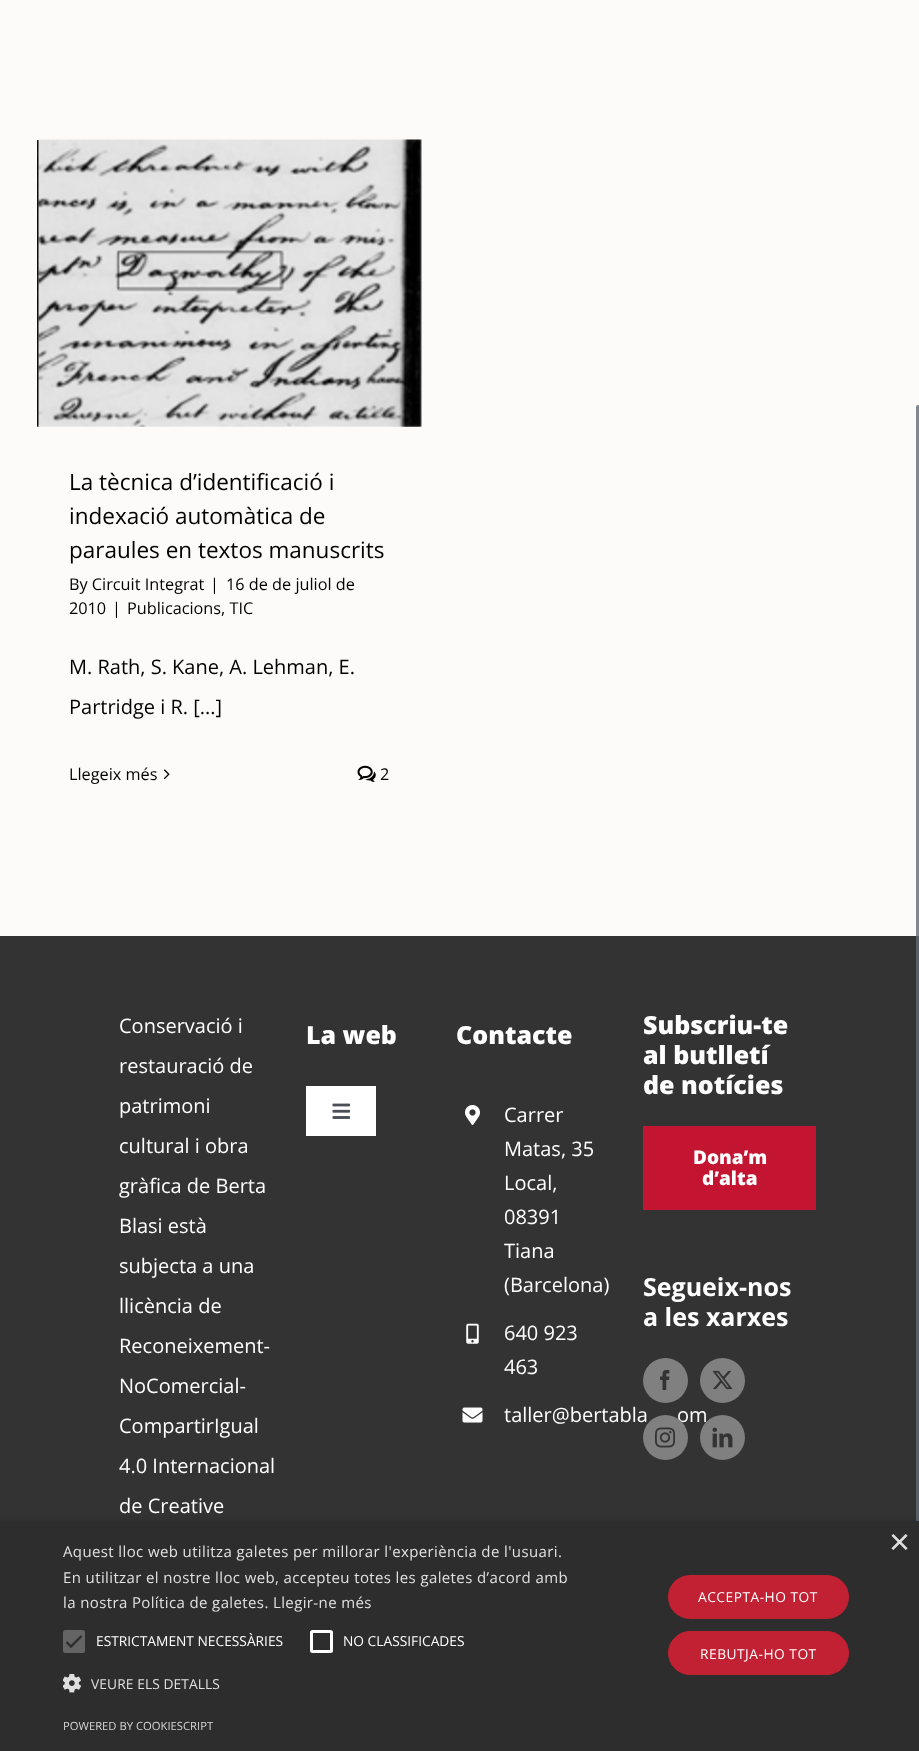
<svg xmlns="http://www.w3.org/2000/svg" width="919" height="1751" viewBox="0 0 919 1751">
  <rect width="100%" height="100%" fill="rgb(252,251,249)"/>
  <image x="37" y="140" width="2" height="287" href="pic2.png"/>
  <image x="38" y="139" width="384" height="288" href="pic1.png"/>
  <g font-family="Open Sans" font-size="22.5" fill="rgb(0,0,0)">
    <text>
      <tspan x="69" y="490">La tècnica d’identificació i</tspan>
      <tspan x="69" y="524">indexació automàtica de</tspan>
      <tspan x="69" y="558">paraules en textos manuscrits</tspan>
    </text>
  </g>
  <g font-family="Open Sans" font-size="16.25" fill="rgb(0,0,0)">
    <text x="69" y="590">By Circuit Integrat</text>
    <text x="210" y="590">|</text>
    <text x="226" y="590">16 de de juliol de</text>
    <text x="69" y="614">2010</text>
    <text x="112" y="614">|</text>
    <text x="127" y="614">Publicacions, TIC</text>
  </g>
  <g font-family="Open Sans" font-size="20" fill="rgb(0,0,0)">
    <text x="69" y="674">M. Rath, S. Kane, A. Lehman, E.</text>
    <text x="69" y="714">Partridge i R. [...]</text>
  </g>
  <text x="69" y="780" font-family="Open Sans" font-size="16.25" fill="rgb(0,0,0)">Llegeix més</text>
  <image x="163" y="769" width="7" height="10" href="pic3.png"/>
  <image x="357" y="765" width="19" height="17" href="pic4.png"/>
  <text x="380" y="780" font-family="Open Sans" font-size="16.25" fill="rgb(0,0,0)">2</text>
  <rect x="0" y="936" width="919" height="585" fill="rgb(51,51,51)"/>
  <g font-family="Open Sans" font-size="20" fill="rgb(255,255,255)">
    <text x="119" y="1033">Conservació i</text>
    <text x="119" y="1073">restauració de</text>
    <text x="119" y="1113">patrimoni</text>
    <text x="119" y="1153">cultural i obra</text>
    <text x="119" y="1193">gràfica de Berta</text>
    <text x="119" y="1233">Blasi està</text>
    <text x="119" y="1273">subjecta a una</text>
    <text x="119" y="1313">llicència de</text>
    <text x="119" y="1353">Reconeixement-</text>
    <text x="119" y="1393">NoComercial-</text>
    <text x="119" y="1433">CompartirIgual</text>
    <text x="119" y="1473">4.0 Internacional</text>
    <text x="119" y="1513">de Creative</text>
  </g>
  <text x="306" y="1044" font-family="Open Sans" font-size="25" font-weight="800" fill="rgb(255,255,255)">La web</text>
  <rect x="306" y="1086" width="70" height="50" fill="rgb(255,255,255)"/>
  <image x="332" y="1103" width="18" height="16" href="pic5.png"/>
  <text x="456" y="1044" font-family="Open Sans" font-size="25" font-weight="800" fill="rgb(255,255,255)">Contacte</text>
  <image x="465" y="1105" width="15" height="20" href="pic6.png"/>
  <g font-family="Open Sans" font-size="20" fill="rgb(255,255,255)">
    <text>
      <tspan x="504" y="1122">Carrer</tspan>
      <tspan x="504" y="1156">Matas, 35</tspan>
      <tspan x="504" y="1190">Local,</tspan>
      <tspan x="504" y="1224">08391</tspan>
      <tspan x="504" y="1258">Tiana</tspan>
      <tspan x="504" y="1292">(Barcelona)</tspan>
    </text>
  </g>
  <image x="466" y="1323" width="13" height="21" href="pic7.png"/>
  <g font-family="Open Sans" font-size="20" fill="rgb(255,255,255)">
    <text>
      <tspan x="504" y="1340">640 923</tspan>
      <tspan x="504" y="1374">463</tspan>
    </text>
  </g>
  <image x="462" y="1407" width="21" height="16" href="pic8.png"/>
  <g font-family="Open Sans" font-size="20" fill="rgb(255,255,255)">
    <text x="504" y="1422">taller@bertabla</text>
    <text x="677" y="1422">om</text>
  </g>
  <g font-family="Open Sans" font-size="25" font-weight="800" fill="rgb(255,255,255)">
    <text>
      <tspan x="643" y="1034">Subscriu-te</tspan>
      <tspan x="643" y="1064">al butlletí</tspan>
      <tspan x="643" y="1094">de notícies</tspan>
    </text>
  </g>
  <rect x="643" y="1126" width="173" height="84" fill="rgb(195,20,50)"/>
  <g font-family="Open Sans" font-size="19" font-weight="800" fill="rgb(255,255,255)">
    <text x="693" y="1164">Dona’m</text>
    <text x="702" y="1185">d’alta</text>
  </g>
  <g font-family="Open Sans" font-size="25" font-weight="bold" fill="rgb(255,255,255)">
    <text>
      <tspan x="643" y="1296">Segueix-nos</tspan>
      <tspan x="643" y="1326">a les xarxes</tspan>
    </text>
  </g>
  <circle cx="665.5" cy="1380.5" r="22.5" fill="rgb(128,128,128)"/>
  <image x="660" y="1370" width="10" height="20" href="pic9.png"/>
  <circle cx="722.5" cy="1380.5" r="22.5" fill="rgb(128,128,128)"/>
  <image x="712" y="1370" width="21" height="20" href="pic10.png"/>
  <circle cx="665.5" cy="1437.5" r="22.5" fill="rgb(128,128,128)"/>
  <image x="655" y="1427" width="20" height="21" href="pic11.png"/>
  <circle cx="722.5" cy="1437.5" r="22.5" fill="rgb(128,128,128)"/>
  <image x="712" y="1427" width="21" height="21" href="pic12.png"/>
  <rect x="916" y="405" width="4" height="1344" rx="2" fill="rgba(97,107,116,0.8)"/>
  <rect x="1" y="1524" width="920" height="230" fill="rgba(0,0,0,0.35)" filter="blur(5px)"/>
  <rect x="0" y="1521" width="919" height="230" fill="rgb(45,45,45)"/>
  <text x="889" y="1554" font-family="Liberation Sans" font-size="36" fill="rgb(224,224,224)">×</text>
  <g font-family="Open Sans" font-size="15" letter-spacing="0.38" fill="rgb(224,224,224)">
    <text>
      <tspan x="63" y="1557">Aquest lloc web utilitza galetes per millorar l'experiència de l'usuari.</tspan>
      <tspan x="63" y="1583">En utilitzar el nostre lloc web, accepteu totes les galetes d’acord amb</tspan>
      <tspan x="63" y="1608">la nostra Política de galetes. Llegir-ne més</tspan>
    </text>
  </g>
  <rect x="63" y="1630" width="22" height="23" rx="2.5" fill="rgb(100,100,100)"/>
  <path d="M66.5 1642L71 1646.5L81.5 1636" fill="none" stroke="rgb(45,45,45)" stroke-width="2.3"/>
  <text x="96" y="1646" font-family="Open Sans" font-size="13.75" fill="rgb(255,255,255)">ESTRICTAMENT NECESSÀRIES</text>
  <rect x="311.5" y="1631.5" width="20" height="20" rx="1" fill="none" stroke="rgb(255,255,255)" stroke-width="3"/>
  <text x="343" y="1646" font-family="Open Sans" font-size="13.75" fill="rgb(255,255,255)">NO CLASSIFICADES</text>
  <image x="63" y="1674" width="18" height="19" href="pic13.png"/>
  <text x="91" y="1689" font-family="Open Sans" font-size="13.75" letter-spacing="0.1" fill="rgb(224,224,224)">VEURE ELS DETALLS</text>
  <rect x="668" y="1575" width="181" height="44" rx="22" fill="rgb(194,32,51)"/>
  <text x="698" y="1602" font-family="Open Sans" font-size="13.75" letter-spacing="0.5" fill="rgb(255,255,255)">ACCEPTA-HO TOT</text>
  <rect x="668.5" y="1631.5" width="180" height="43" rx="21.5" fill="rgb(194,32,51)" stroke="rgb(194,32,51)"/>
  <text x="700" y="1659" font-family="Open Sans" font-size="13.75" letter-spacing="0.5" fill="rgb(255,255,255)">REBUTJA-HO TOT</text>
  <text x="63" y="1730" font-family="Open Sans" font-size="11.25" fill="rgb(213,213,213)">POWERED BY COOKIESCRIPT</text>
</svg>
